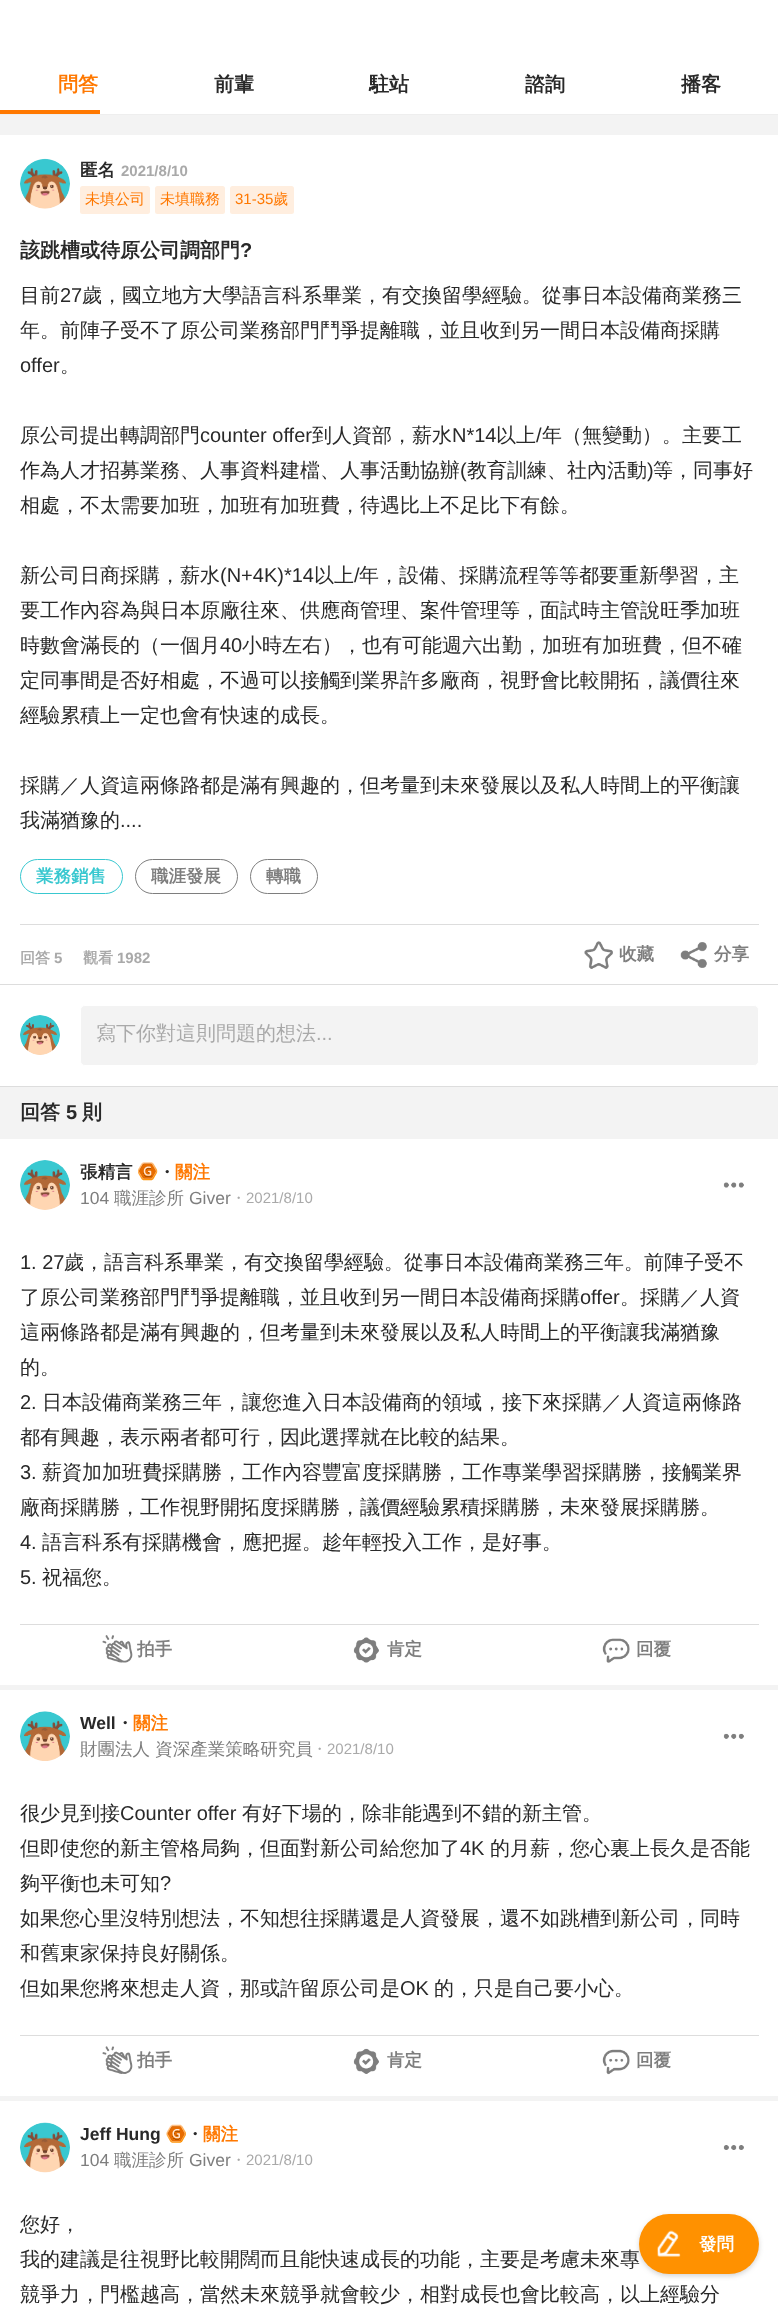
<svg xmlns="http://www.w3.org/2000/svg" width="778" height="2323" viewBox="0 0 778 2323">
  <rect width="100%" height="100%" fill="rgb(255,255,255)"/>
  <rect x="0" y="114" width="778" height="1" fill="rgb(238,238,238)"/>
  <text x="58" y="91" font-family="WenQuanYi Zen Hei" font-size="20" font-weight="bold" fill="rgb(255,120,0)">問答</text>
  <rect x="0" y="110" width="100" height="4" fill="rgb(255,120,0)"/>
  <g font-family="WenQuanYi Zen Hei" font-size="20" font-weight="bold" fill="rgb(41,41,41)">
    <text x="214" y="91">前輩</text>
    <text x="369" y="91">駐站</text>
    <text x="525" y="91">諮詢</text>
    <text x="681" y="91">播客</text>
  </g>
  <rect x="0" y="115" width="778" height="20" fill="rgb(243,243,243)"/>
  <image x="20" y="158" width="50" height="51" href="pic1.png"/>
  <text x="80" y="176" font-family="WenQuanYi Zen Hei" font-size="17.5" font-weight="bold" fill="rgb(41,41,41)">匿名</text>
  <text x="121" y="176" font-family="Liberation Sans" font-size="15" font-weight="bold" fill="rgb(169,169,169)">2021/8/10</text>
  <rect x="80" y="186" width="70" height="28" rx="2.5" fill="rgb(255,238,223)"/>
  <text x="85" y="204" font-family="WenQuanYi Zen Hei" font-size="15" font-weight="500" fill="rgb(255,120,0)">未填公司</text>
  <rect x="155" y="186" width="70" height="28" rx="2.5" fill="rgb(255,238,223)"/>
  <text x="160" y="204" font-family="WenQuanYi Zen Hei" font-size="15" font-weight="500" fill="rgb(255,120,0)">未填職務</text>
  <rect x="230" y="186" width="64" height="28" rx="2.5" fill="rgb(255,238,223)"/>
  <text x="235" y="204" font-family="Liberation Sans" font-size="15" fill="rgb(255,120,0)">31-35</text>
  <text x="273" y="204" font-family="WenQuanYi Zen Hei" font-size="15" font-weight="500" fill="rgb(255,120,0)">歲</text>
  <text x="20" y="257" font-family="WenQuanYi Zen Hei" font-size="20" font-weight="bold" fill="rgb(41,41,41)">該跳槽或待原公司調部門</text>
  <text x="240" y="257" font-family="Liberation Sans" font-size="20" font-weight="bold" fill="rgb(41,41,41)">?</text>
  <text x="20" y="302" font-family="WenQuanYi Zen Hei" font-size="20" font-weight="500" fill="rgb(41,41,41)">目前</text>
  <text x="60" y="302" font-family="Liberation Sans" font-size="20" fill="rgb(41,41,41)">27</text>
  <g font-family="WenQuanYi Zen Hei" font-size="20" font-weight="500" fill="rgb(41,41,41)">
    <text x="82" y="302">歲，國立地方大學語言科系畢業，有交換留學經驗。從事日本設備商業務三</text>
    <text x="20" y="337">年。前陣子受不了原公司業務部門鬥爭提離職，並且收到另一間日本設備商採購</text>
  </g>
  <text x="20" y="372" font-family="Liberation Sans" font-size="20" fill="rgb(41,41,41)">offer</text>
  <g font-family="WenQuanYi Zen Hei" font-size="20" font-weight="500" fill="rgb(41,41,41)">
    <text x="60" y="372">。</text>
    <text x="20" y="442">原公司提出轉調部門</text>
  </g>
  <text x="200" y="442" font-family="Liberation Sans" font-size="20" fill="rgb(41,41,41)">counter offer</text>
  <text x="312" y="442" font-family="WenQuanYi Zen Hei" font-size="20" font-weight="500" fill="rgb(41,41,41)">到人資部，薪水</text>
  <text x="452" y="442" font-family="Liberation Sans" font-size="20" fill="rgb(41,41,41)">N*14</text>
  <text x="496" y="442" font-family="WenQuanYi Zen Hei" font-size="20" font-weight="500" fill="rgb(41,41,41)">以上</text>
  <text x="536" y="442" font-family="Liberation Sans" font-size="20" fill="rgb(41,41,41)">/</text>
  <g font-family="WenQuanYi Zen Hei" font-size="20" font-weight="500" fill="rgb(41,41,41)">
    <text x="542" y="442">年（無變動）。主要工</text>
    <text x="20" y="477">作為人才招募業務、人事資料建檔、人事活動協辦</text>
  </g>
  <text x="460" y="477" font-family="Liberation Sans" font-size="20" fill="rgb(41,41,41)">(</text>
  <text x="467" y="477" font-family="WenQuanYi Zen Hei" font-size="20" font-weight="500" fill="rgb(41,41,41)">教育訓練、社內活動</text>
  <text x="647" y="477" font-family="Liberation Sans" font-size="20" fill="rgb(41,41,41)">)</text>
  <g font-family="WenQuanYi Zen Hei" font-size="20" font-weight="500" fill="rgb(41,41,41)">
    <text x="653" y="477">等，同事好</text>
    <text x="20" y="512">相處，不太需要加班，加班有加班費，待遇比上不足比下有餘。</text>
    <text x="20" y="582">新公司日商採購，薪水</text>
  </g>
  <text x="220" y="582" font-family="Liberation Sans" font-size="20" fill="rgb(41,41,41)">(N+4K)*14</text>
  <text x="314" y="582" font-family="WenQuanYi Zen Hei" font-size="20" font-weight="500" fill="rgb(41,41,41)">以上</text>
  <text x="354" y="582" font-family="Liberation Sans" font-size="20" fill="rgb(41,41,41)">/</text>
  <g font-family="WenQuanYi Zen Hei" font-size="20" font-weight="500" fill="rgb(41,41,41)">
    <text x="359" y="582">年，設備、採購流程等等都要重新學習，主</text>
    <text>
      <tspan x="20" y="617">要工作內容為與日本原廠往來、供應商管理、案件管理等，面試時主管說旺季加班</tspan>
      <tspan x="20" y="652">時數會滿長的（一個月</tspan>
    </text>
  </g>
  <text x="220" y="652" font-family="Liberation Sans" font-size="20" fill="rgb(41,41,41)">40</text>
  <g font-family="WenQuanYi Zen Hei" font-size="20" font-weight="500" fill="rgb(41,41,41)">
    <text x="242" y="652">小時左右），也有可能週六出勤，加班有加班費，但不確</text>
    <text>
      <tspan x="20" y="687">定同事間是否好相處，不過可以接觸到業界許多廠商，視野會比較開拓，議價往來</tspan>
      <tspan x="20" y="722">經驗累積上一定也會有快速的成長。</tspan>
    </text>
    <text>
      <tspan x="20" y="792">採購／人資這兩條路都是滿有興趣的，但考量到未來發展以及私人時間上的平衡讓</tspan>
      <tspan x="20" y="827">我滿猶豫的</tspan>
    </text>
  </g>
  <text x="120" y="827" font-family="Liberation Sans" font-size="20" fill="rgb(41,41,41)">....</text>
  <rect x="20.5" y="859.5" width="102" height="34" rx="17" fill="none" stroke="rgb(57,200,208)"/>
  <text x="36" y="882" font-family="WenQuanYi Zen Hei" font-size="17.5" font-weight="bold" fill="rgb(57,200,208)">業務銷售</text>
  <rect x="135.5" y="859.5" width="102" height="34" rx="17" fill="none" stroke="rgb(126,126,126)"/>
  <text x="151" y="882" font-family="WenQuanYi Zen Hei" font-size="17.5" font-weight="bold" fill="rgb(126,126,126)">職涯發展</text>
  <rect x="250.5" y="859.5" width="67" height="34" rx="17" fill="none" stroke="rgb(126,126,126)"/>
  <text x="266" y="882" font-family="WenQuanYi Zen Hei" font-size="17.5" font-weight="bold" fill="rgb(126,126,126)">轉職</text>
  <rect x="20" y="924" width="739" height="1" fill="rgb(221,221,221)"/>
  <text x="20" y="963" font-family="WenQuanYi Zen Hei" font-size="15" font-weight="bold" fill="rgb(169,169,169)">回答</text>
  <text x="54" y="963" font-family="Liberation Sans" font-size="15" font-weight="bold" fill="rgb(169,169,169)">5</text>
  <text x="83" y="963" font-family="WenQuanYi Zen Hei" font-size="15" font-weight="bold" fill="rgb(169,169,169)">觀看</text>
  <text x="117" y="963" font-family="Liberation Sans" font-size="15" font-weight="bold" fill="rgb(169,169,169)">1982</text>
  <image x="584" y="941" width="29" height="28" href="pic2.png"/>
  <text x="619" y="960" font-family="WenQuanYi Zen Hei" font-size="17.5" font-weight="bold" fill="rgb(126,126,126)">收藏</text>
  <image x="680" y="942" width="27" height="26" href="pic3.png"/>
  <text x="714" y="960" font-family="WenQuanYi Zen Hei" font-size="17.5" font-weight="bold" fill="rgb(126,126,126)">分享</text>
  <rect x="0" y="984" width="778" height="1" fill="rgb(221,221,221)"/>
  <image x="20" y="1015" width="40" height="40" href="pic4.png"/>
  <rect x="80.5" y="1005.5" width="678" height="60" rx="4.5" fill="rgb(243,243,243)" stroke="rgb(255,255,255)"/>
  <text x="96" y="1040" font-family="WenQuanYi Zen Hei" font-size="20" font-weight="500" fill="rgb(169,169,169)">寫下你對這則問題的想法</text>
  <text x="316" y="1040" font-family="Liberation Sans" font-size="20" fill="rgb(169,169,169)">...</text>
  <rect x="0" y="1087" width="778" height="52" fill="rgb(243,243,243)"/>
  <rect x="0" y="1086" width="778" height="1" fill="rgb(221,221,221)"/>
  <text x="20" y="1119" font-family="WenQuanYi Zen Hei" font-size="20" font-weight="bold" fill="rgb(41,41,41)">回答</text>
  <text x="66" y="1119" font-family="Liberation Sans" font-size="20" font-weight="bold" fill="rgb(41,41,41)">5</text>
  <text x="82" y="1119" font-family="WenQuanYi Zen Hei" font-size="20" font-weight="bold" fill="rgb(41,41,41)">則</text>
  <rect x="0" y="1685" width="778" height="5" fill="rgb(243,243,243)"/>
  <image x="20" y="1160" width="50" height="50" href="pic5.png"/>
  <text x="80" y="1178" font-family="WenQuanYi Zen Hei" font-size="17.5" font-weight="bold" fill="rgb(41,41,41)">張精言</text>
  <image x="138" y="1162" width="20" height="19" href="pic6.png"/>
  <text x="158" y="1178" font-family="WenQuanYi Zen Hei" font-size="17.5" font-weight="bold" fill="rgb(41,41,41)">・</text>
  <text x="175" y="1178" font-family="WenQuanYi Zen Hei" font-size="17.5" font-weight="bold" fill="rgb(255,120,0)">關注</text>
  <text x="80" y="1204" font-family="Liberation Sans" font-size="17.5" fill="rgb(126,126,126)">104</text>
  <text x="114" y="1204" font-family="WenQuanYi Zen Hei" font-size="17.5" font-weight="500" fill="rgb(126,126,126)">職涯診所</text>
  <text x="189" y="1204" font-family="Liberation Sans" font-size="17.5" fill="rgb(126,126,126)">Giver</text>
  <text x="231" y="1203" font-family="WenQuanYi Zen Hei" font-size="15" font-weight="500" fill="rgb(169,169,169)">・</text>
  <text x="246" y="1203" font-family="Liberation Sans" font-size="15" fill="rgb(169,169,169)">2021/8/10</text>
  <image x="723" y="1182" width="21" height="6" href="pic7.png"/>
  <text x="20" y="1269" font-family="Liberation Sans" font-size="20" fill="rgb(41,41,41)">1. 27</text>
  <g font-family="WenQuanYi Zen Hei" font-size="20" font-weight="500" fill="rgb(41,41,41)">
    <text x="64" y="1269">歲，語言科系畢業，有交換留學經驗。從事日本設備商業務三年。前陣子受不</text>
    <text x="20" y="1304">了原公司業務部門鬥爭提離職，並且收到另一間日本設備商採購</text>
  </g>
  <text x="580" y="1304" font-family="Liberation Sans" font-size="20" fill="rgb(41,41,41)">offer</text>
  <g font-family="WenQuanYi Zen Hei" font-size="20" font-weight="500" fill="rgb(41,41,41)">
    <text x="620" y="1304">。採購／人資</text>
    <text>
      <tspan x="20" y="1339">這兩條路都是滿有興趣的，但考量到未來發展以及私人時間上的平衡讓我滿猶豫</tspan>
      <tspan x="20" y="1374">的。</tspan>
    </text>
  </g>
  <text x="20" y="1409" font-family="Liberation Sans" font-size="20" fill="rgb(41,41,41)">2.</text>
  <g font-family="WenQuanYi Zen Hei" font-size="20" font-weight="500" fill="rgb(41,41,41)">
    <text x="42" y="1409">日本設備商業務三年，讓您進入日本設備商的領域，接下來採購／人資這兩條路</text>
    <text x="20" y="1444">都有興趣，表示兩者都可行，因此選擇就在比較的結果。</text>
  </g>
  <text x="20" y="1479" font-family="Liberation Sans" font-size="20" fill="rgb(41,41,41)">3.</text>
  <g font-family="WenQuanYi Zen Hei" font-size="20" font-weight="500" fill="rgb(41,41,41)">
    <text x="42" y="1479">薪資加加班費採購勝，工作內容豐富度採購勝，工作專業學習採購勝，接觸業界</text>
    <text x="20" y="1514">廠商採購勝，工作視野開拓度採購勝，議價經驗累積採購勝，未來發展採購勝。</text>
  </g>
  <text x="20" y="1549" font-family="Liberation Sans" font-size="20" fill="rgb(41,41,41)">4.</text>
  <text x="42" y="1549" font-family="WenQuanYi Zen Hei" font-size="20" font-weight="500" fill="rgb(41,41,41)">語言科系有採購機會，應把握。趁年輕投入工作，是好事。</text>
  <text x="20" y="1584" font-family="Liberation Sans" font-size="20" fill="rgb(41,41,41)">5.</text>
  <text x="42" y="1584" font-family="WenQuanYi Zen Hei" font-size="20" font-weight="500" fill="rgb(41,41,41)">祝福您。</text>
  <rect x="20" y="1624" width="739" height="1" fill="rgb(221,221,221)"/>
  <image x="102" y="1635" width="31" height="28" href="pic8.png"/>
  <text x="137" y="1655" font-family="WenQuanYi Zen Hei" font-size="17.5" font-weight="bold" fill="rgb(126,126,126)">拍手</text>
  <image x="353" y="1637" width="26" height="26" href="pic9.png"/>
  <text x="387" y="1655" font-family="WenQuanYi Zen Hei" font-size="17.5" font-weight="bold" fill="rgb(126,126,126)">肯定</text>
  <image x="602" y="1638" width="28" height="25" href="pic10.png"/>
  <text x="636" y="1655" font-family="WenQuanYi Zen Hei" font-size="17.5" font-weight="bold" fill="rgb(126,126,126)">回覆</text>
  <rect x="0" y="2096" width="778" height="5" fill="rgb(243,243,243)"/>
  <image x="20" y="1711" width="50" height="50" href="pic11.png"/>
  <text x="80" y="1729" font-family="Liberation Sans" font-size="17.5" font-weight="bold" fill="rgb(41,41,41)">Well</text>
  <text x="116" y="1729" font-family="WenQuanYi Zen Hei" font-size="17.5" font-weight="bold" fill="rgb(41,41,41)">・</text>
  <text x="133" y="1729" font-family="WenQuanYi Zen Hei" font-size="17.5" font-weight="bold" fill="rgb(255,120,0)">關注</text>
  <text x="80" y="1755" font-family="WenQuanYi Zen Hei" font-size="17.5" font-weight="500" fill="rgb(126,126,126)">財團法人 資深產業策略研究員</text>
  <text x="312" y="1754" font-family="WenQuanYi Zen Hei" font-size="15" font-weight="500" fill="rgb(169,169,169)">・</text>
  <text x="327" y="1754" font-family="Liberation Sans" font-size="15" fill="rgb(169,169,169)">2021/8/10</text>
  <image x="723" y="1733" width="21" height="6" href="pic12.png"/>
  <text x="20" y="1820" font-family="WenQuanYi Zen Hei" font-size="20" font-weight="500" fill="rgb(41,41,41)">很少見到接</text>
  <text x="120" y="1820" font-family="Liberation Sans" font-size="20" fill="rgb(41,41,41)">Counter offer</text>
  <g font-family="WenQuanYi Zen Hei" font-size="20" font-weight="500" fill="rgb(41,41,41)">
    <text x="242" y="1820">有好下場的，除非能遇到不錯的新主管。</text>
    <text x="20" y="1855">但即使您的新主管格局夠，但面對新公司給您加了</text>
  </g>
  <text x="460" y="1855" font-family="Liberation Sans" font-size="20" fill="rgb(41,41,41)">4K</text>
  <g font-family="WenQuanYi Zen Hei" font-size="20" font-weight="500" fill="rgb(41,41,41)">
    <text x="490" y="1855">的月薪，您心裏上長久是否能</text>
    <text x="20" y="1890">夠平衡也未可知</text>
  </g>
  <text x="160" y="1890" font-family="Liberation Sans" font-size="20" fill="rgb(41,41,41)">?</text>
  <g font-family="WenQuanYi Zen Hei" font-size="20" font-weight="500" fill="rgb(41,41,41)">
    <text>
      <tspan x="20" y="1925">如果您心里沒特別想法，不知想往採購還是人資發展，還不如跳槽到新公司，同時</tspan>
      <tspan x="20" y="1960">和舊東家保持良好關係。</tspan>
      <tspan x="20" y="1995">但如果您將來想走人資，那或許留原公司是</tspan>
    </text>
  </g>
  <text x="400" y="1995" font-family="Liberation Sans" font-size="20" fill="rgb(41,41,41)">OK</text>
  <text x="434" y="1995" font-family="WenQuanYi Zen Hei" font-size="20" font-weight="500" fill="rgb(41,41,41)">的，只是自己要小心。</text>
  <rect x="20" y="2035" width="739" height="1" fill="rgb(221,221,221)"/>
  <image x="102" y="2046" width="31" height="28" href="pic13.png"/>
  <text x="137" y="2066" font-family="WenQuanYi Zen Hei" font-size="17.5" font-weight="bold" fill="rgb(126,126,126)">拍手</text>
  <image x="353" y="2048" width="26" height="26" href="pic14.png"/>
  <text x="387" y="2066" font-family="WenQuanYi Zen Hei" font-size="17.5" font-weight="bold" fill="rgb(126,126,126)">肯定</text>
  <image x="602" y="2049" width="28" height="26" href="pic15.png"/>
  <text x="636" y="2066" font-family="WenQuanYi Zen Hei" font-size="17.5" font-weight="bold" fill="rgb(126,126,126)">回覆</text>
  <image x="20" y="2122" width="50" height="51" href="pic16.png"/>
  <text x="80" y="2140" font-family="Liberation Sans" font-size="17.5" font-weight="bold" fill="rgb(41,41,41)">Jeff Hung</text>
  <image x="166" y="2124" width="20" height="19" href="pic17.png"/>
  <text x="186" y="2140" font-family="WenQuanYi Zen Hei" font-size="17.5" font-weight="bold" fill="rgb(41,41,41)">・</text>
  <text x="203" y="2140" font-family="WenQuanYi Zen Hei" font-size="17.5" font-weight="bold" fill="rgb(255,120,0)">關注</text>
  <text x="80" y="2166" font-family="Liberation Sans" font-size="17.5" fill="rgb(126,126,126)">104</text>
  <text x="114" y="2166" font-family="WenQuanYi Zen Hei" font-size="17.5" font-weight="500" fill="rgb(126,126,126)">職涯診所</text>
  <text x="189" y="2166" font-family="Liberation Sans" font-size="17.5" fill="rgb(126,126,126)">Giver</text>
  <text x="231" y="2165" font-family="WenQuanYi Zen Hei" font-size="15" font-weight="500" fill="rgb(169,169,169)">・</text>
  <text x="246" y="2165" font-family="Liberation Sans" font-size="15" fill="rgb(169,169,169)">2021/8/10</text>
  <image x="723" y="2145" width="21" height="5" href="pic18.png"/>
  <g font-family="WenQuanYi Zen Hei" font-size="20" font-weight="500" fill="rgb(41,41,41)">
    <text>
      <tspan x="20" y="2231">您好，</tspan>
      <tspan x="20" y="2266">我的建議是往視野比較開闊而且能快速成長的功能，主要是考慮未來專</tspan>
      <tspan x="20" y="2301">競爭力，門檻越高，當然未來競爭就會較少，相對成長也會比較高，以上經驗分</tspan>
    </text>
  </g>
  <rect x="639" y="2216" width="120" height="60" rx="30" fill="rgba(41,41,41,0.2)" filter="blur(2.5px)"/>
  <rect x="639" y="2214" width="120" height="60" rx="30" fill="rgb(255,145,0)"/>
  <image x="657" y="2230" width="24" height="27" href="pic19.png"/>
  <text x="699" y="2250" font-family="WenQuanYi Zen Hei" font-size="17.5" font-weight="bold" fill="rgb(255,255,255)">發問</text>
</svg>
